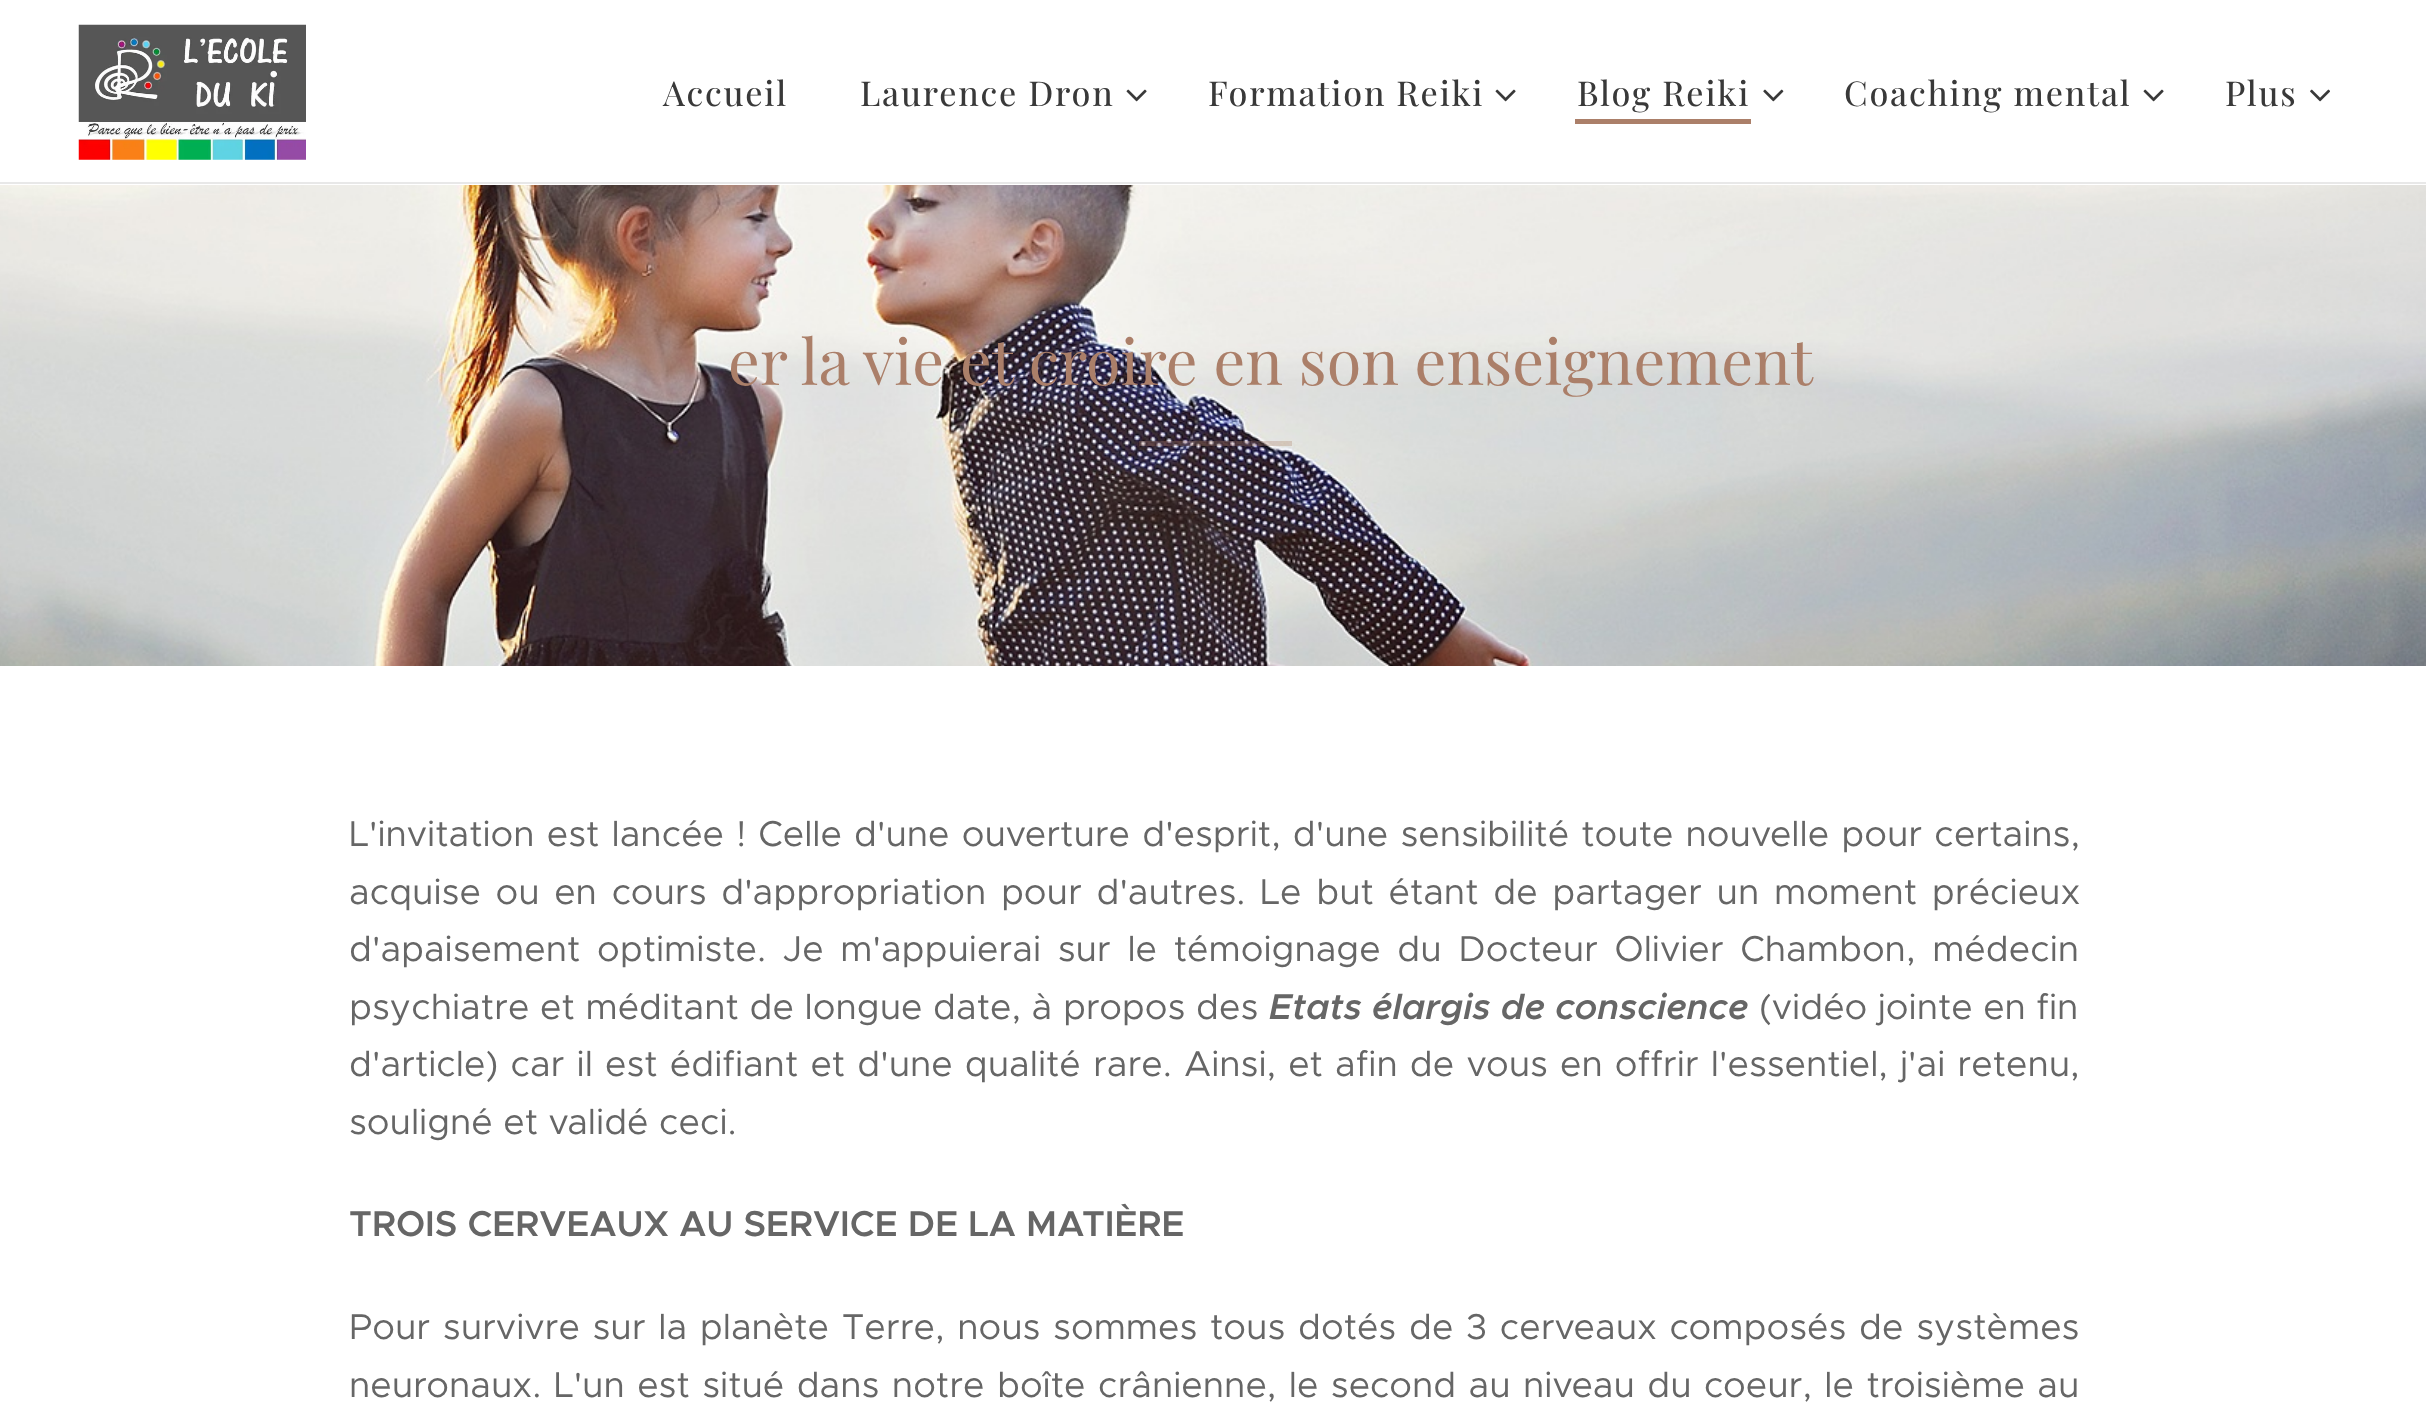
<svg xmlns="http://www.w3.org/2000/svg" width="2426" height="1414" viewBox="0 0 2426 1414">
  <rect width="100%" height="100%" fill="rgb(255,255,255)"/>
  <image x="78" y="24" width="228" height="136" href="pic1.png"/>
  <g font-family="'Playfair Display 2'" font-size="34.25" letter-spacing="1.75" fill="rgb(57,57,57)">
    <text x="663" y="106">Accueil</text>
    <text x="860" y="106">Laurence Dron</text>
  </g>
  <image x="1126" y="89" width="21" height="13" href="pic2.png"/>
  <text x="1208" y="106" font-family="'Playfair Display 2'" font-size="34.25" letter-spacing="1.75" fill="rgb(57,57,57)">Formation Reiki</text>
  <image x="1495" y="89" width="21" height="13" href="pic2.png"/>
  <text x="1577" y="106" font-family="'Playfair Display 2'" font-size="34.25" letter-spacing="1.75" fill="rgb(57,57,57)">Blog Reiki</text>
  <rect x="1575" y="119" width="176" height="5" fill="rgb(171,127,105)"/>
  <image x="1763" y="89" width="21" height="13" href="pic3.png"/>
  <text x="1844" y="106" font-family="'Playfair Display 2'" font-size="34.25" letter-spacing="1.75" fill="rgb(57,57,57)">Coaching mental</text>
  <image x="2143" y="89" width="21" height="13" href="pic2.png"/>
  <text x="2225" y="106" font-family="'Playfair Display 2'" font-size="34.25" letter-spacing="1.75" fill="rgb(57,57,57)">Plus</text>
  <image x="2310" y="89" width="20" height="13" href="pic4.png"/>
  <rect x="0" y="182" width="2426" height="2" fill="rgb(232,232,232)"/>
  <image x="0" y="185" width="2426" height="481" href="pic5.png"/>
  <text x="728" y="385" font-family="Playfair Display" font-size="63" fill="rgb(171,127,105)">er la vie et croire en son enseignement</text>
  <rect x="1139" y="441" width="153" height="5" fill="rgba(171,127,105,0.3)"/>
  <g font-family="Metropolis" font-size="36" fill="rgb(102,102,102)">
    <text>
      <tspan x="349" y="846" word-spacing="1.75">L'invitation est lancée ! Celle d'une ouverture d'esprit, d'une sensibilité toute nouvelle pour certains,</tspan>
      <tspan x="349" y="904" word-spacing="4.25">acquise ou en cours d'appropriation pour d'autres. Le but étant de partager un moment précieux</tspan>
      <tspan x="349" y="961" word-spacing="6.25">d'apaisement optimiste. Je m'appuierai sur le témoignage du Docteur Olivier Chambon, médecin</tspan>
      <tspan x="349" y="1019" word-spacing="0.25">psychiatre et méditant de longue date, à propos des</tspan>
    </text>
  </g>
  <text x="1269" y="1019" word-spacing="0.25" font-family="Metropolis" font-size="36" font-weight="600" font-style="italic" fill="rgb(102,102,102)">Etats élargis de conscience</text>
  <g font-family="Metropolis" font-size="36" fill="rgb(102,102,102)">
    <text x="1759" y="1019">(vidéo jointe en fin</text>
    <text>
      <tspan x="349" y="1076" word-spacing="1.7">d'article) car il est édifiant et d'une qualité rare. Ainsi, et afin de vous en offrir l'essentiel, j'ai retenu,</tspan>
      <tspan x="349" y="1134">souligné et validé ceci.</tspan>
    </text>
  </g>
  <text x="349" y="1236" font-family="Metropolis" font-size="36" font-weight="600" fill="rgb(102,102,102)">TROIS CERVEAUX AU SERVICE DE LA MATIÈRE</text>
  <g font-family="Metropolis" font-size="36" fill="rgb(102,102,102)">
    <text>
      <tspan x="349" y="1339" word-spacing="2.25">Pour survivre sur la planète Terre, nous sommes tous dotés de 3 cerveaux composés de systèmes</tspan>
      <tspan x="349" y="1397" word-spacing="2">neuronaux. L'un est situé dans notre boîte crânienne, le second au niveau du coeur, le troisième au</tspan>
    </text>
  </g>
</svg>
